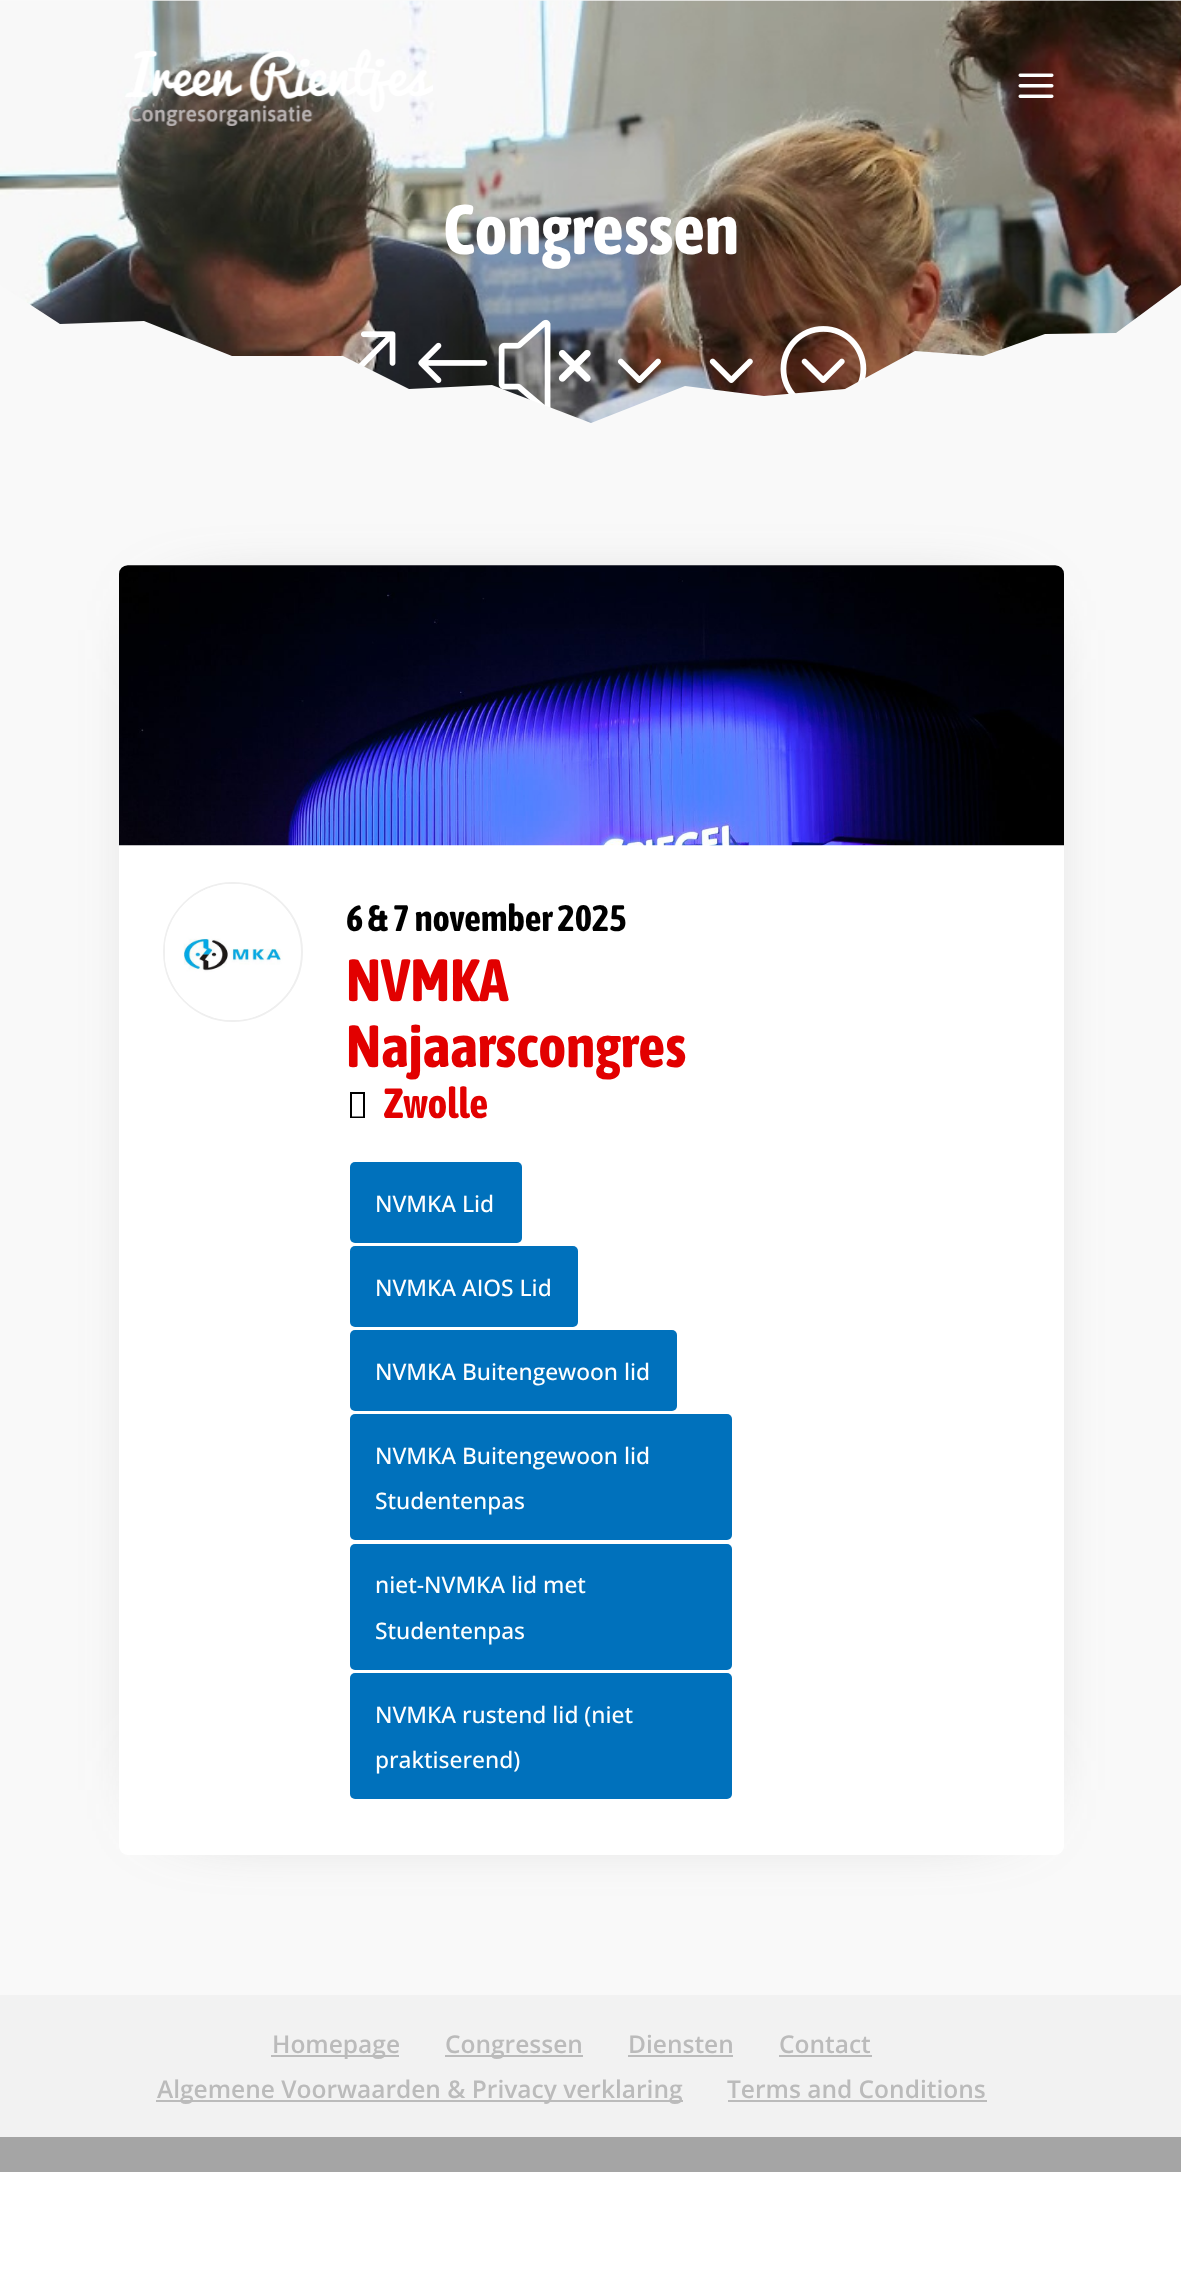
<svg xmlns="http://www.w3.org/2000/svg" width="1181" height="2289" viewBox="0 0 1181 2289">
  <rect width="100%" height="100%" fill="rgb(255,255,255)"/>
  <rect x="0" y="0" width="1181" height="1" fill="rgb(249,249,249)"/>
  <image x="0" y="0" width="1181" height="423" href="pic3.png"/>
  <image x="125" y="49" width="308" height="77" href="pic1.png"/>
  <image x="1018" y="73" width="36" height="25" href="pic2.png"/>
  <text x="443" y="254" font-family="Asap Condensed" font-size="70" font-weight="bold" fill="rgb(255,255,255)">Congressen</text>
  <image x="358" y="319" width="509" height="89" href="pic4.png"/>
  <path d="M0 285L60 324L144 321L232 356H343L409 389L492 385L591 423L685 386L764 396L845 389L915 351L983 356L1045 334L1116 333L1181 285V425H0Z" fill="rgb(249,249,249)"/>
  <rect x="0" y="425" width="1181" height="1570" fill="rgb(249,249,249)"/>
  <rect x="184" y="630" width="815" height="1160" fill="rgb(102,102,102)" filter="blur(44px)"/>
  <rect x="119" y="565" width="945" height="1290" rx="9" fill="rgb(255,255,255)"/>
  <image x="119" y="565" width="945" height="281" href="pic5.png"/>
  <circle cx="233" cy="952" r="69" fill="none" stroke="rgb(239,239,239)" stroke-width="2"/>
  <image x="165" y="884" width="129" height="136" href="pic6.png"/>
  <text x="346" y="931" font-family="Asap Condensed" font-size="36.75" font-weight="bold" fill="rgb(0,0,0)">6 &amp; 7 november 2025</text>
  <g font-family="Asap Condensed" font-size="59.5" font-weight="bold" fill="rgb(226,0,0)">
    <text>
      <tspan x="346" y="1001">NVMKA</tspan>
      <tspan x="346" y="1067">Najaarscongres</tspan>
    </text>
  </g>
  <path d="M350 1118V1092H365V1118ZM352 1116.5H363V1094H352Z" fill="rgb(0,0,0)"/>
  <text x="384" y="1118" font-family="Asap Condensed" font-size="42" font-weight="bold" fill="rgb(226,0,0)">Zwolle</text>
  <rect x="350" y="1162" width="172" height="81" rx="5" fill="rgb(0,113,188)"/>
  <text x="375" y="1212" font-family="Open Sans" font-size="22.75" font-weight="500" fill="rgb(255,255,255)">NVMKA Lid</text>
  <rect x="350" y="1246" width="228" height="81" rx="5" fill="rgb(0,113,188)"/>
  <text x="375" y="1296" font-family="Open Sans" font-size="22.75" font-weight="500" fill="rgb(255,255,255)">NVMKA AIOS Lid</text>
  <rect x="350" y="1330" width="327" height="81" rx="5" fill="rgb(0,113,188)"/>
  <text x="375" y="1380" font-family="Open Sans" font-size="22.75" font-weight="500" fill="rgb(255,255,255)">NVMKA Buitengewoon lid</text>
  <rect x="350" y="1414" width="382" height="126" rx="5" fill="rgb(0,113,188)"/>
  <g font-family="Open Sans" font-size="22.75" font-weight="500" fill="rgb(255,255,255)">
    <text>
      <tspan x="375" y="1464">NVMKA Buitengewoon lid</tspan>
      <tspan x="375" y="1509">Studentenpas</tspan>
    </text>
  </g>
  <rect x="350" y="1544" width="382" height="126" rx="5" fill="rgb(0,113,188)"/>
  <g font-family="Open Sans" font-size="22.75" font-weight="500" fill="rgb(255,255,255)">
    <text x="375" y="1593">niet-NVMKA lid met</text>
    <text x="375" y="1639">Studentenpas</text>
  </g>
  <rect x="350" y="1673" width="382" height="126" rx="5" fill="rgb(0,113,188)"/>
  <g font-family="Open Sans" font-size="22.75" font-weight="500" fill="rgb(255,255,255)">
    <text>
      <tspan x="375" y="1723">NVMKA rustend lid (niet</tspan>
      <tspan x="375" y="1768">praktiserend)</tspan>
    </text>
  </g>
  <rect x="0" y="1995" width="1181" height="142" fill="rgb(242,242,242)"/>
  <rect x="271" y="2055" width="128" height="2" fill="rgb(187,187,187)"/>
  <text x="272" y="2053" font-family="Open Sans" font-size="24.5" font-weight="600" fill="rgb(187,187,187)">Homepage</text>
  <rect x="445" y="2055" width="138" height="2" fill="rgb(187,187,187)"/>
  <g font-family="Open Sans" font-size="24.5" font-weight="600" fill="rgb(187,187,187)">
    <text x="445" y="2053">Congressen</text>
    <text x="628" y="2053">Diensten</text>
  </g>
  <rect x="628" y="2055" width="105" height="2" fill="rgb(187,187,187)"/>
  <text x="779" y="2053" font-family="Open Sans" font-size="24.5" font-weight="600" fill="rgb(187,187,187)">Contact</text>
  <rect x="779" y="2055" width="93" height="2" fill="rgb(187,187,187)"/>
  <rect x="156" y="2100" width="527" height="2" fill="rgb(187,187,187)"/>
  <g font-family="Open Sans" font-size="24.5" font-weight="600" fill="rgb(187,187,187)">
    <text x="157" y="2098">Algemene Voorwaarden &amp; Privacy verklaring</text>
    <text x="727" y="2098">Terms and Conditions</text>
  </g>
  <rect x="728" y="2100" width="259" height="2" fill="rgb(187,187,187)"/>
  <rect x="0" y="2137" width="1181" height="35" fill="rgb(165,165,165)"/>
</svg>
